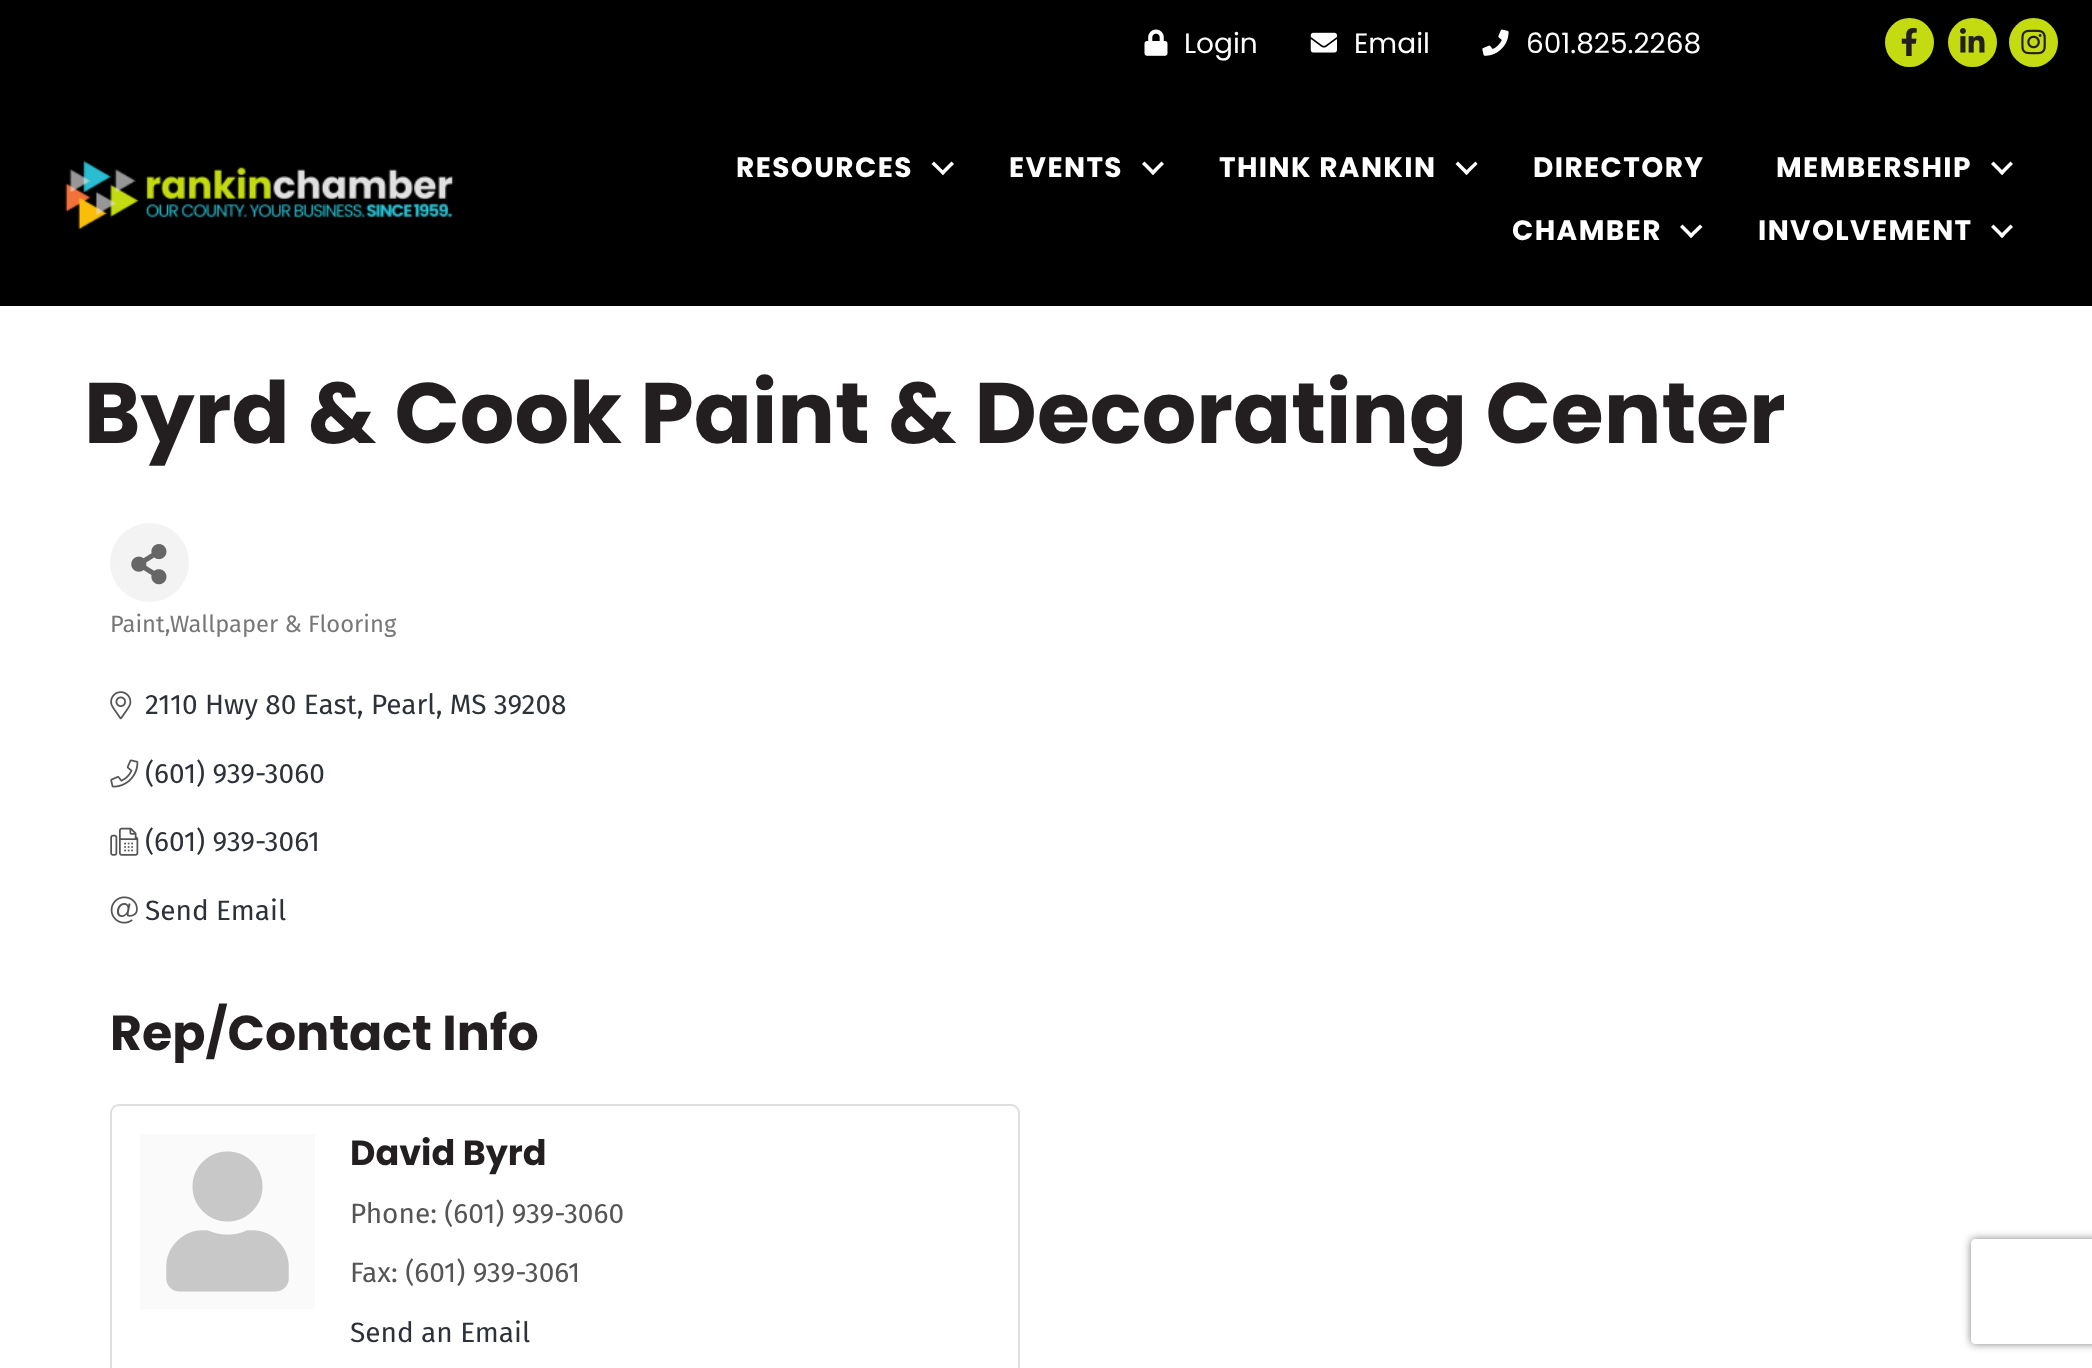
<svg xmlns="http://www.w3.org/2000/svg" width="2092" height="1368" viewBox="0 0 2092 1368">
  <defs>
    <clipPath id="clip1"><path d="M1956 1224H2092V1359H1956ZM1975 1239H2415C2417 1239 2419 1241 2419 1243V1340C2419 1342 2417 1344 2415 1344H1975C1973 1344 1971 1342 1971 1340V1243C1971 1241 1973 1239 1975 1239Z" clip-rule="evenodd"/></clipPath>
  </defs>
  <rect width="100%" height="100%" fill="rgb(0,0,0)"/>
  <image x="1144" y="29" width="24" height="27" href="pic1.png"/>
  <text x="1184" y="53" font-family="Poppins" font-size="28" fill="rgb(255,255,255)">Login</text>
  <image x="1310" y="32" width="27" height="21" href="pic2.png"/>
  <text x="1354" y="53" font-family="Poppins" font-size="28" fill="rgb(255,255,255)">Email</text>
  <image x="1482" y="29" width="27" height="27" href="pic3.png"/>
  <text x="1526" y="53" font-family="Poppins" font-size="28" fill="rgb(255,255,255)">601.825.2268</text>
  <circle cx="1909.5" cy="42.5" r="24.5" fill="rgb(196,219,17)"/>
  <image x="1901" y="28" width="16" height="28" href="pic4.png"/>
  <circle cx="1972.5" cy="42.5" r="24.5" fill="rgb(196,219,17)"/>
  <image x="1960" y="28" width="25" height="25" href="pic5.png"/>
  <circle cx="2033.5" cy="42.5" r="24.5" fill="rgb(196,219,17)"/>
  <image x="2021" y="29" width="25" height="26" href="pic6.png"/>
  <image x="65" y="160" width="389" height="70" href="pic7.png"/>
  <text x="736" y="177" font-family="Poppins" font-size="28" font-weight="bold" letter-spacing="1.4" fill="rgb(255,255,255)">RESOURCES</text>
  <path d="M951.5 161.5L954 164L943 175L940.5 172.5Z" fill="rgb(255,255,255)"/>
  <path d="M934 161.5L945 172.5L943 175L931.5 164Z" fill="rgb(255,255,255)"/>
  <text x="1009" y="177" font-family="Poppins" font-size="28" font-weight="bold" letter-spacing="1.4" fill="rgb(255,255,255)">EVENTS</text>
  <path d="M1161.5 161.5L1164 164L1153 175L1150.5 172.5Z" fill="rgb(255,255,255)"/>
  <path d="M1144.5 161.5L1155.5 172.5L1153 175L1142 164Z" fill="rgb(255,255,255)"/>
  <text x="1219" y="177" font-family="Poppins" font-size="28" font-weight="bold" letter-spacing="1.4" fill="rgb(255,255,255)">THINK RANKIN</text>
  <path d="M1475.5 161.5L1477.5 164L1466.5 175L1464 172.5Z" fill="rgb(255,255,255)"/>
  <path d="M1458 161.5L1469 172.5L1466.5 175L1455.5 164Z" fill="rgb(255,255,255)"/>
  <g font-family="Poppins" font-size="28" font-weight="bold" letter-spacing="1.4" fill="rgb(255,255,255)">
    <text x="1533" y="177">DIRECTORY</text>
    <text x="1776" y="177">MEMBERSHIP</text>
  </g>
  <path d="M2010.5 161.5L2013 164L2002 175L1999.5 172.5Z" fill="rgb(255,255,255)"/>
  <path d="M1993.5 161.5L2004.5 172.5L2002 175L1991 164Z" fill="rgb(255,255,255)"/>
  <text x="1512" y="240" font-family="Poppins" font-size="28" font-weight="bold" letter-spacing="1.4" fill="rgb(255,255,255)">CHAMBER</text>
  <path d="M1700 224.5L1702.5 227L1691 238L1688.5 235.5Z" fill="rgb(255,255,255)"/>
  <path d="M1682.5 224.5L1693.5 235.5L1691 238L1680 227Z" fill="rgb(255,255,255)"/>
  <text x="1758" y="240" font-family="Poppins" font-size="28" font-weight="bold" letter-spacing="1.4" fill="rgb(255,255,255)">INVOLVEMENT</text>
  <path d="M2010.5 224.5L2013 227L2002 238L1999.5 235.5Z" fill="rgb(255,255,255)"/>
  <path d="M1993.5 224.5L2004.5 235.5L2002 238L1991 227Z" fill="rgb(255,255,255)"/>
  <rect x="0" y="306" width="2092" height="1062" fill="rgb(255,255,255)"/>
  <text x="84" y="443" font-family="Poppins" font-size="85.75" font-weight="bold" fill="rgb(35,31,32)">Byrd &amp; Cook Paint &amp; Decorating Center</text>
  <circle cx="149.5" cy="562.5" r="39.5" fill="rgb(243,243,243)"/>
  <image x="131" y="544" width="36" height="41" href="pic8.png"/>
  <text x="110" y="632" font-family="Fira Sans" font-size="23.75" fill="rgb(119,119,119)">Paint,Wallpaper &amp; Flooring</text>
  <image x="110" y="691" width="22" height="29" href="pic9.png"/>
  <text x="145" y="714" font-family="Fira Sans" font-size="28" fill="rgb(45,49,58)">2110 Hwy 80 East, Pearl, MS 39208</text>
  <image x="110" y="759" width="29" height="29" href="pic10.png"/>
  <text x="145" y="783" font-family="Fira Sans" font-size="28" fill="rgb(45,49,58)">(601) 939-3060</text>
  <image x="110" y="827" width="29" height="29" href="pic11.png"/>
  <text x="145" y="851" font-family="Fira Sans" font-size="28" fill="rgb(45,49,58)">(601) 939-3061</text>
  <image x="110" y="896" width="28" height="28" href="pic12.png"/>
  <text x="145" y="920" font-family="Fira Sans" font-size="28" fill="rgb(45,49,58)">Send Email</text>
  <text x="110" y="1050" font-family="Poppins" font-size="49" font-weight="bold" fill="rgb(35,31,32)">Rep/Contact Info</text>
  <rect x="111" y="1105" width="908" height="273" rx="8" fill="none" stroke="rgb(223,223,223)" stroke-width="2"/>
  <rect x="140" y="1134" width="175" height="175" fill="rgb(250,250,250)"/>
  <image x="166" y="1151" width="123" height="141" href="pic13.png"/>
  <text x="350" y="1165" font-family="Poppins" font-size="35" font-weight="bold" fill="rgb(35,31,32)">David Byrd</text>
  <g font-family="Fira Sans" font-size="28" fill="rgb(85,85,85)">
    <text x="350" y="1223">Phone: (601) 939-3060</text>
    <text x="350" y="1282">Fax: (601) 939-3061</text>
  </g>
  <text x="350" y="1342" font-family="Fira Sans" font-size="28" fill="rgb(45,49,58)">Send an Email</text>
  <g clip-path="url(#clip1)">
    <rect x="1971" y="1239" width="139" height="105" rx="4" fill="rgb(128,128,128)" filter="blur(4.5px)"/>
  </g>
</svg>
